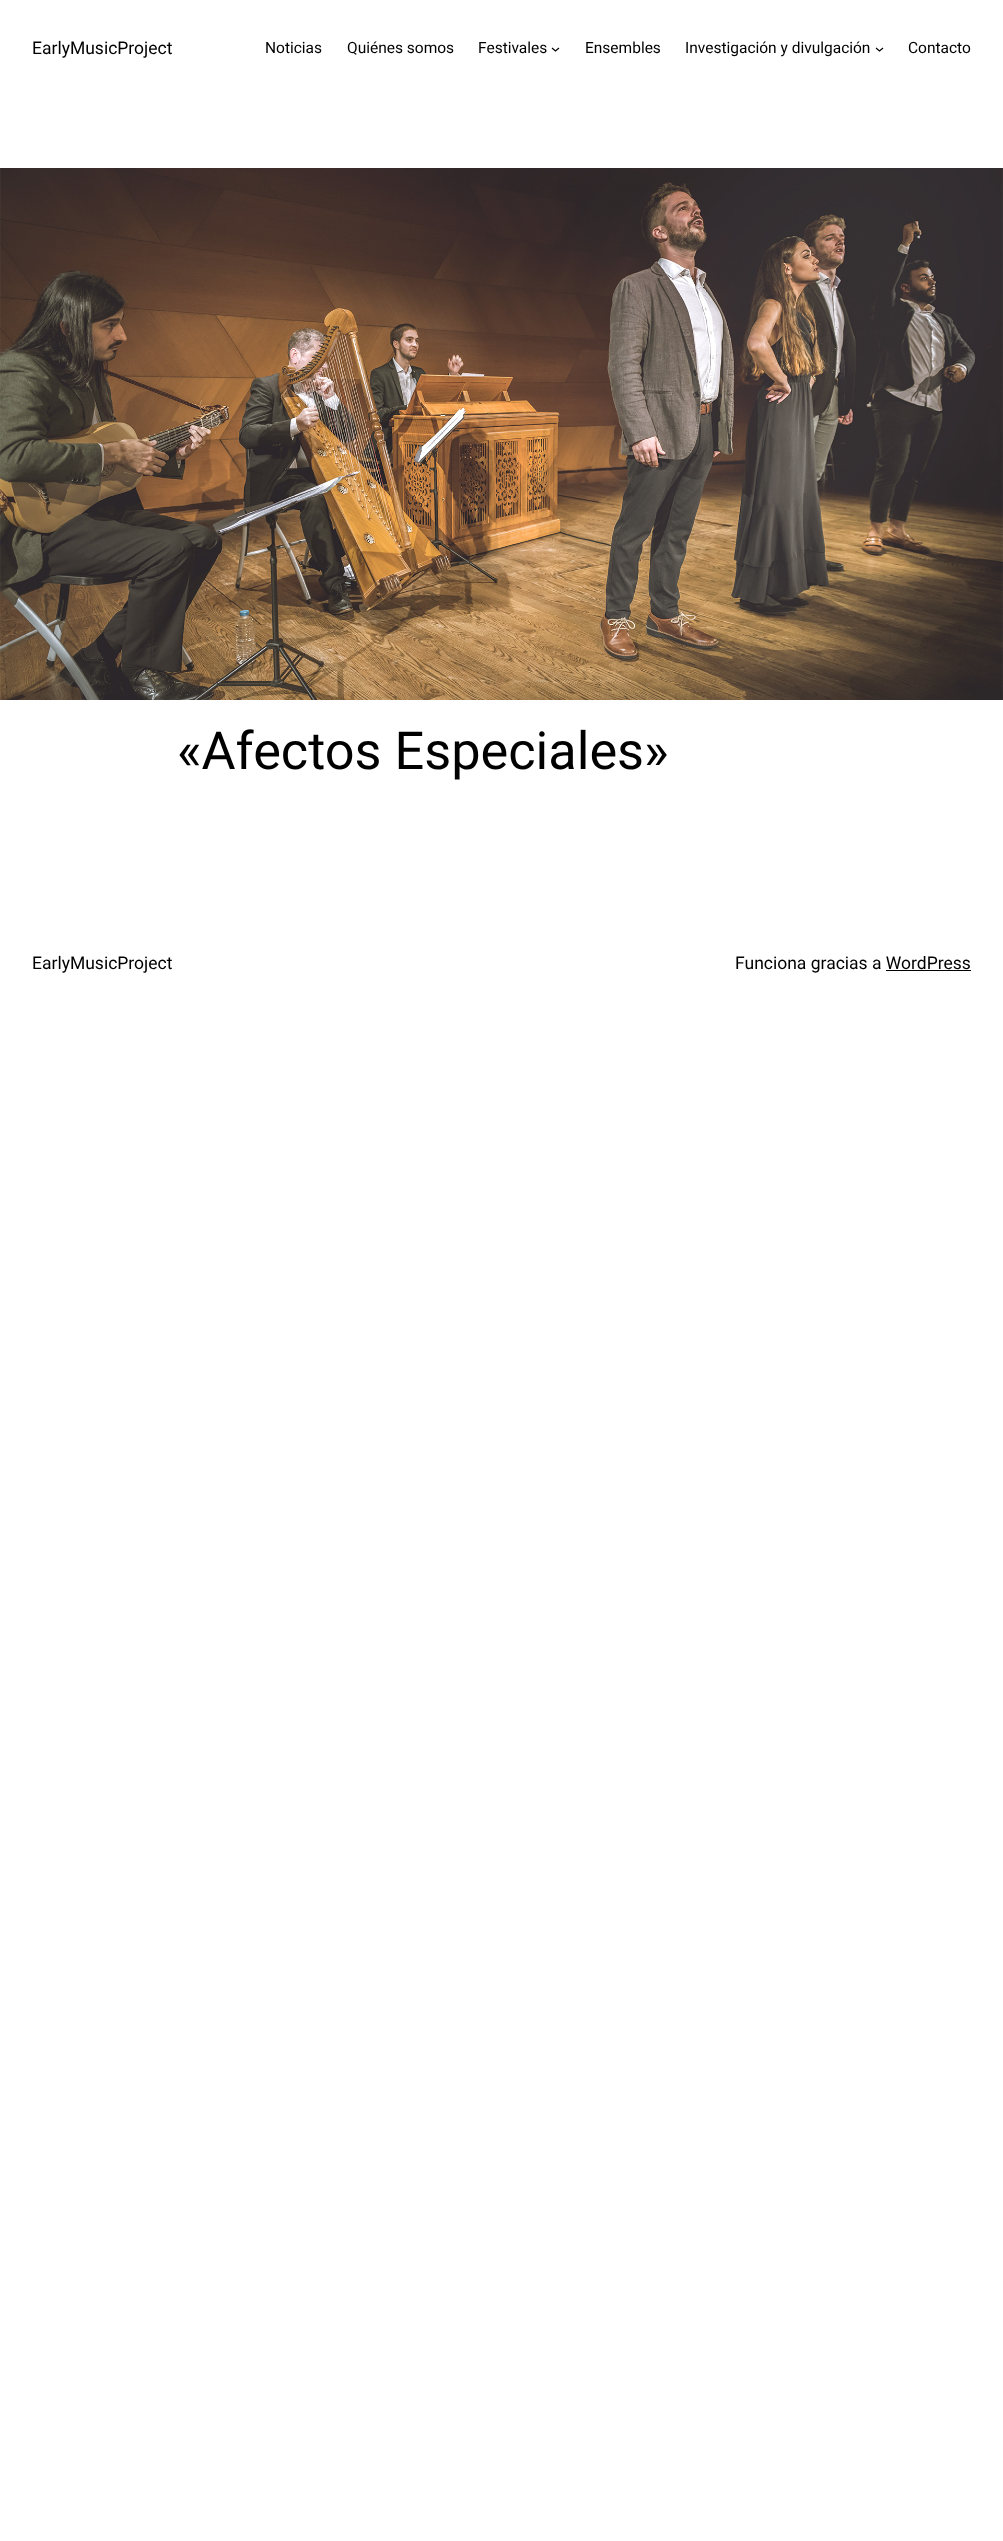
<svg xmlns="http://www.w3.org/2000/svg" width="1003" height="2541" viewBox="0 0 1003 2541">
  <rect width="100%" height="100%" fill="rgb(255,255,255)"/>
  <text x="32" y="54" font-family="Roboto" font-size="17.5" fill="rgb(0,0,0)">EarlyMusicProject</text>
  <g font-family="Roboto" font-size="15.5" fill="rgb(0,0,0)">
    <text x="265" y="53">Noticias</text>
    <text x="347" y="53">Quiénes somos</text>
    <text x="478" y="53">Festivales</text>
  </g>
  <path d="M552 48L555.5 51L559 48" fill="none" stroke="rgb(0,0,0)" stroke-width="1.2"/>
  <g font-family="Roboto" font-size="15.5" fill="rgb(0,0,0)">
    <text x="585" y="53">Ensembles</text>
    <text x="685" y="53">Investigación y divulgación</text>
  </g>
  <path d="M876 48L879.5 51L883 48" fill="none" stroke="rgb(0,0,0)" stroke-width="1.2"/>
  <text x="908" y="53" font-family="Roboto" font-size="15.5" fill="rgb(0,0,0)">Contacto</text>
  <image x="0" y="168" width="1003" height="532" href="pic1.png"/>
  <text x="177" y="769" font-family="Roboto" font-size="52.25" fill="rgb(0,0,0)">«Afectos Especiales»</text>
  <g font-family="Roboto" font-size="17.5" fill="rgb(0,0,0)">
    <text x="32" y="969">EarlyMusicProject</text>
    <text x="735" y="969">Funciona gracias a WordPress</text>
  </g>
  <rect x="886" y="970" width="85" height="1" fill="rgb(0,0,0)"/>
</svg>
